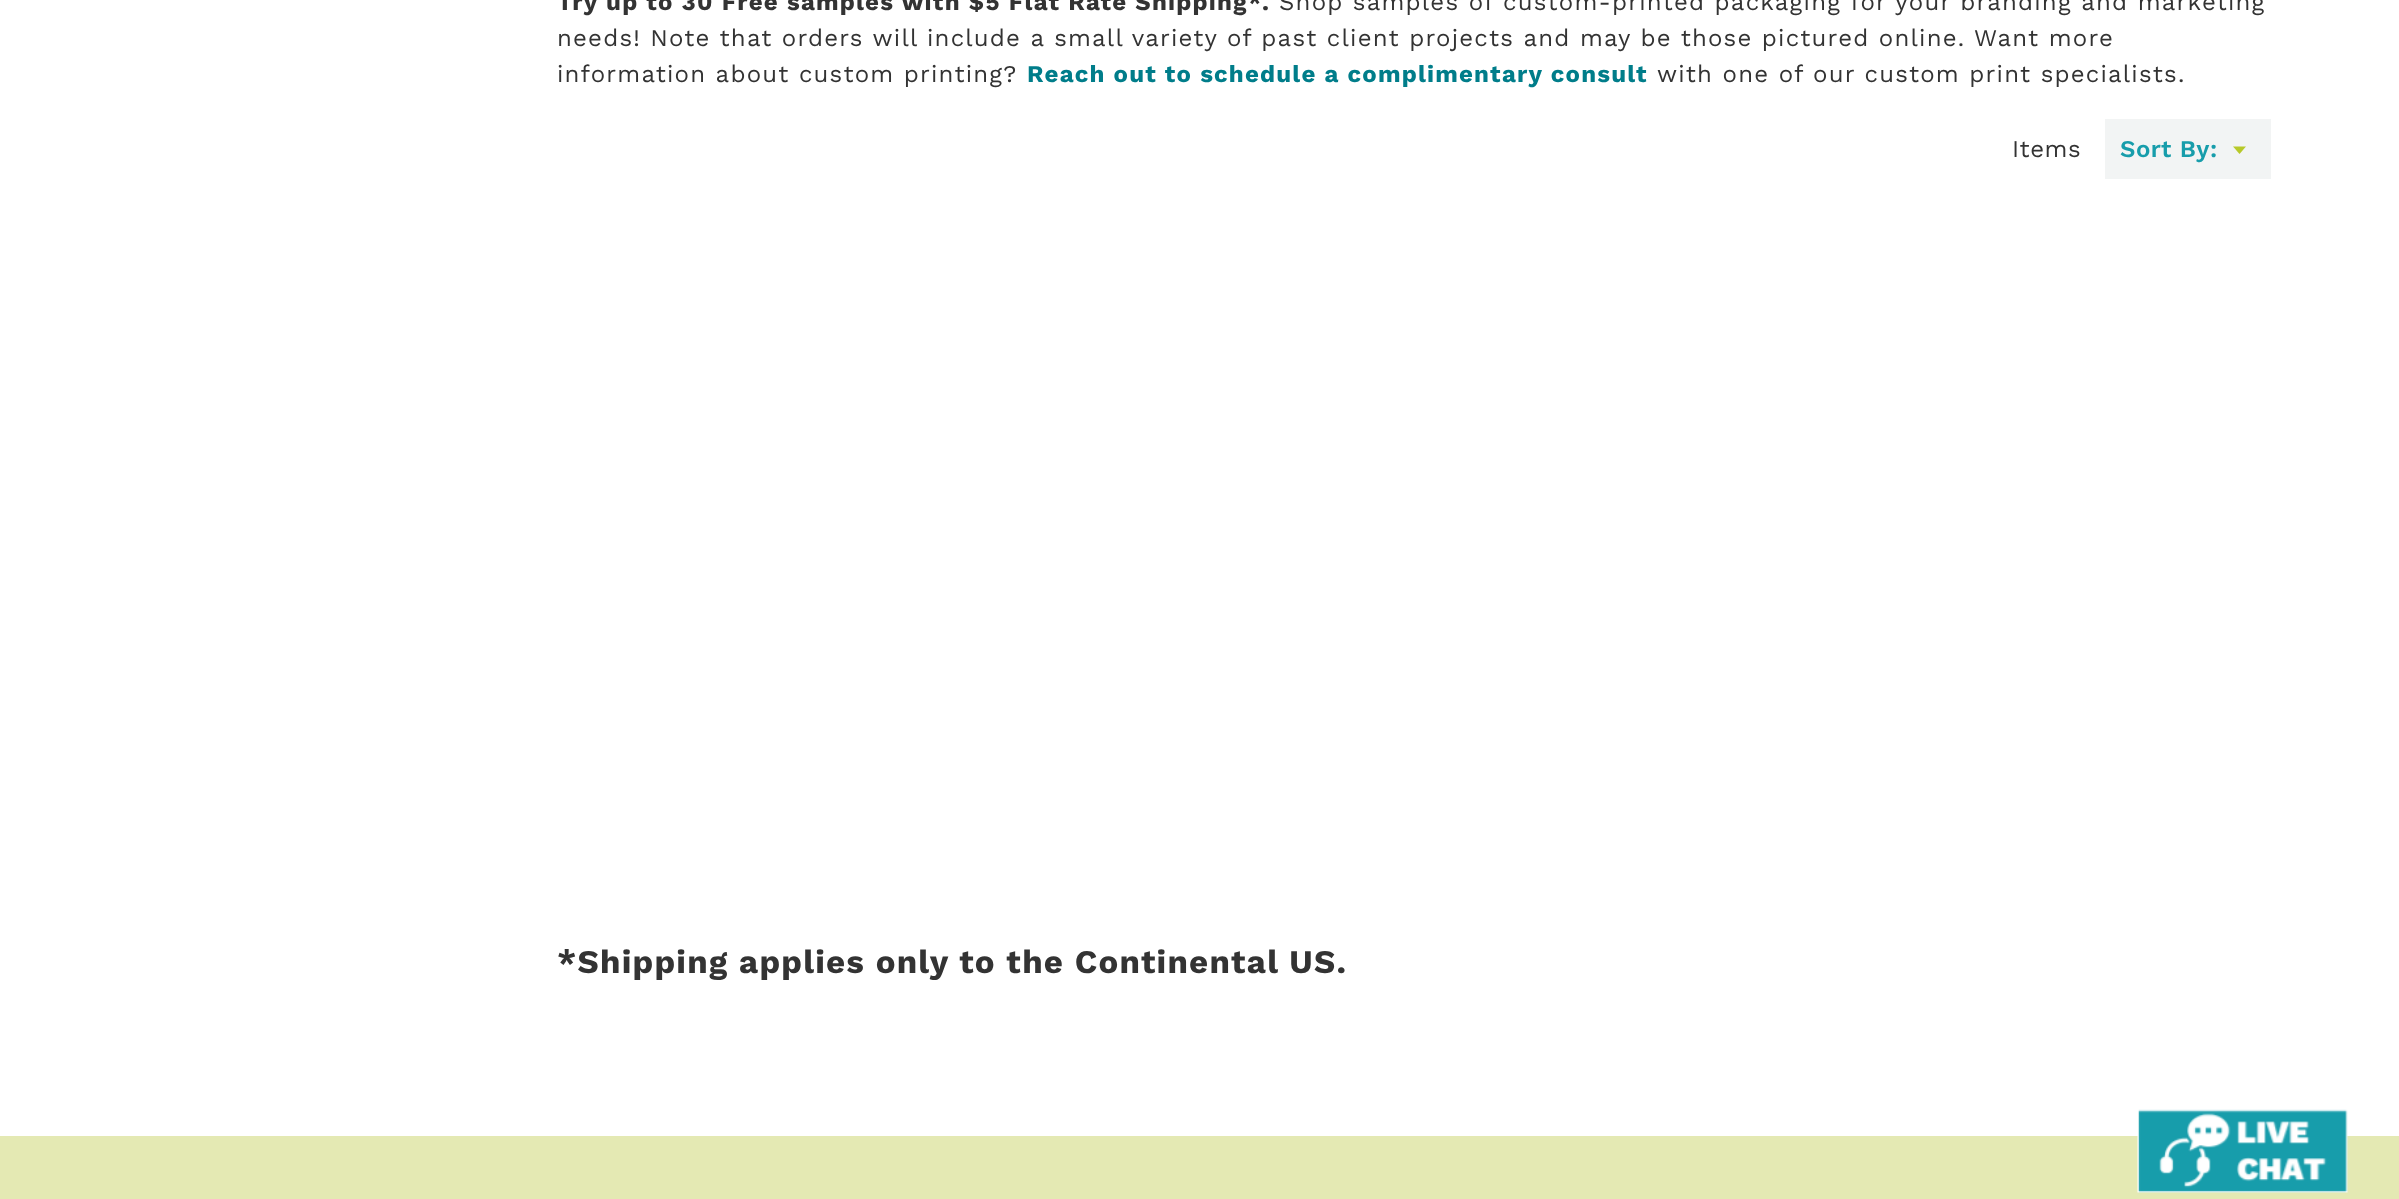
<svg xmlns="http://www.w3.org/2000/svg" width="2399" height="1199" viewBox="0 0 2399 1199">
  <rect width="100%" height="100%" fill="rgb(255,255,255)"/>
  <text x="557" y="10" font-family="Work Sans" font-size="24" font-weight="bold" letter-spacing="1.2" fill="rgb(51,51,51)">Try up to 30 Free samples with $5 Flat Rate Shipping*.</text>
  <g font-family="Work Sans" font-size="24" letter-spacing="1.2" fill="rgb(51,51,51)">
    <text x="1279" y="10">Shop samples of custom-printed packaging for your branding and marketing</text>
    <text>
      <tspan x="557" y="46">needs! Note that orders will include a small variety of past client projects and may be those pictured online. Want more</tspan>
      <tspan x="557" y="82">information about custom printing?</tspan>
    </text>
  </g>
  <text x="1027" y="82" font-family="Work Sans" font-size="24" font-weight="bold" letter-spacing="1.2" fill="rgb(0,125,138)">Reach out to schedule a complimentary consult</text>
  <text x="1657" y="82" font-family="Work Sans" font-size="24" letter-spacing="1.2" fill="rgb(51,51,51)">with one of our custom print specialists.</text>
  <text x="2012" y="157" font-family="Work Sans" font-size="24" letter-spacing="0.5" fill="rgb(51,51,51)">Items</text>
  <rect x="2105" y="119" width="166" height="60" fill="rgb(242,244,244)"/>
  <text x="2120" y="157" font-family="Work Sans" font-size="24" font-weight="600" letter-spacing="0.5" fill="rgb(23,157,171)">Sort By:</text>
  <path d="M2239.5 154L2233 146.5H2246Z" fill="rgb(183,201,41)"/>
  <text x="557" y="973" font-family="Work Sans" font-size="33" font-weight="bold" letter-spacing="1.2" fill="rgb(51,51,51)">*Shipping applies only to the Continental US.</text>
  <rect x="0" y="1136" width="2399" height="63" fill="rgb(228,233,179)"/>
  <image x="2137" y="1109" width="211" height="84" href="pic1.png"/>
</svg>
